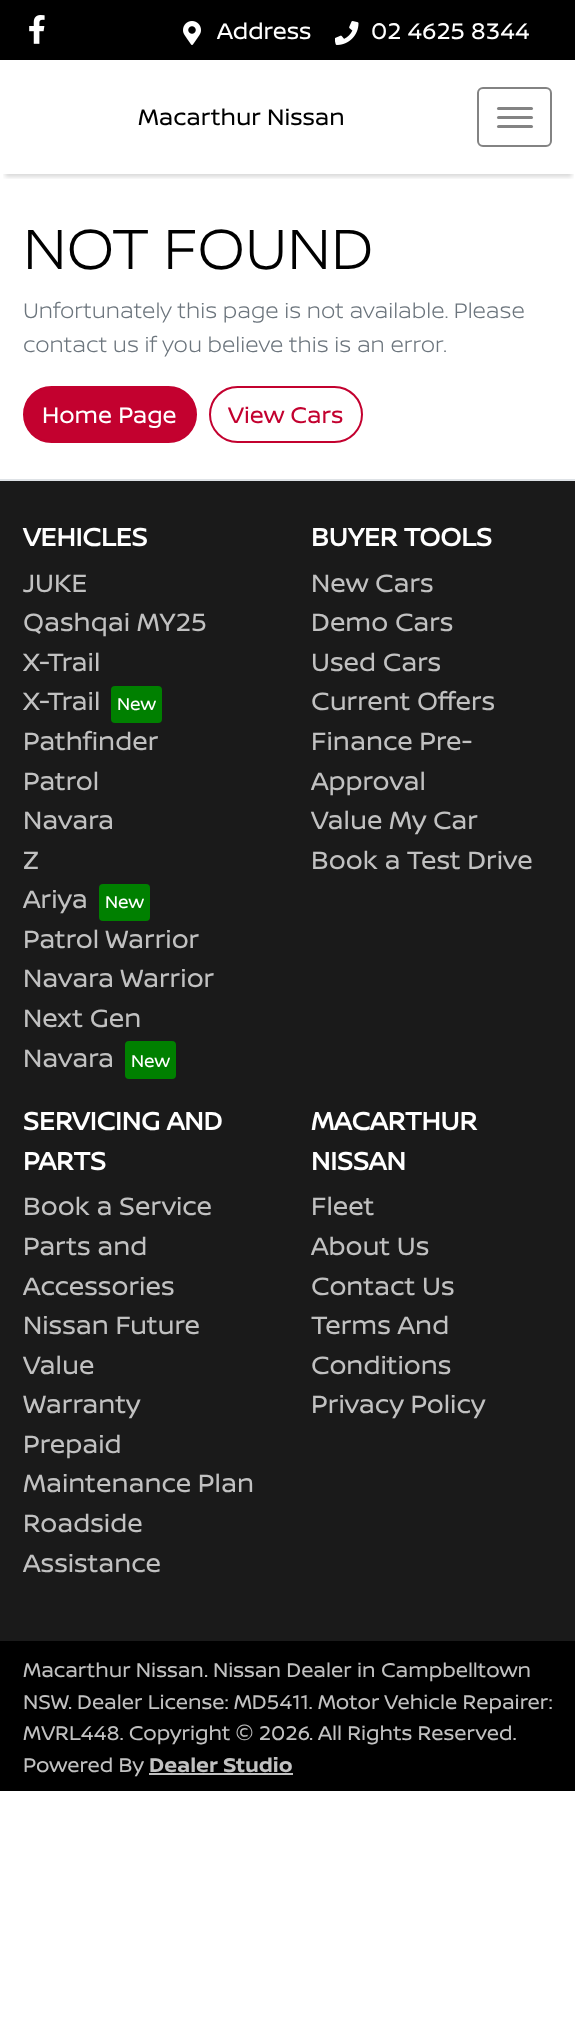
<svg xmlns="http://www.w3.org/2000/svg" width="575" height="2034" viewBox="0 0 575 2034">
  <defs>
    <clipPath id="clip1"><rect x="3" y="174" width="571" height="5"/></clipPath>
  </defs>
  <rect width="100%" height="100%" fill="rgb(255,255,255)"/>
  <rect x="0" y="0" width="575" height="60" fill="rgb(0,0,0)"/>
  <image x="29" y="15" width="16" height="29" href="pic1.png"/>
  <image x="183" y="21" width="18" height="24" href="pic2.png"/>
  <text x="217" y="39" font-family="'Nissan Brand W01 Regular'" font-size="24" fill="rgb(255,255,255)">Address</text>
  <image x="335" y="21" width="24" height="24" href="pic3.png"/>
  <text x="371" y="39" font-family="'Nissan Brand W01 Regular'" font-size="24" fill="rgb(255,255,255)">02 4625 8344</text>
  <g clip-path="url(#clip1)">
    <rect x="5" y="72" width="567" height="105" fill="rgba(0,0,0,0.15)" filter="blur(2px)"/>
  </g>
  <text x="138" y="125" font-family="'Nissan Brand W01 Regular'" font-size="24" fill="rgb(0,0,0)">Macarthur Nissan</text>
  <rect x="478" y="88" width="73" height="58" rx="5" fill="none" stroke="rgb(131,131,131)" stroke-width="2"/>
  <rect x="497" y="107" width="36" height="3" rx="1.5" fill="rgb(131,131,131)"/>
  <rect x="497" y="116" width="36" height="3" rx="1.5" fill="rgb(131,131,131)"/>
  <rect x="497" y="125" width="36" height="3" rx="1.5" fill="rgb(131,131,131)"/>
  <text x="23" y="269" font-family="'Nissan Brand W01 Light'" font-size="60" font-weight="300" fill="rgb(0,0,0)">NOT FOUND</text>
  <g font-family="'Nissan Brand W01 Light'" font-size="22.5" font-weight="300" fill="rgb(108,117,125)">
    <text>
      <tspan x="23" y="318">Unfortunately this page is not available. Please</tspan>
      <tspan x="23" y="352">contact us if you believe this is an error.</tspan>
    </text>
  </g>
  <rect x="24" y="387" width="172" height="55" rx="27.5" fill="rgb(195,1,47)" stroke="rgb(195,1,47)" stroke-width="2"/>
  <text x="42" y="423" font-family="'Nissan Brand W01 Regular'" font-size="24" fill="rgb(255,255,255)">Home Page</text>
  <rect x="210" y="387" width="152" height="55" rx="27.5" fill="none" stroke="rgb(195,1,47)" stroke-width="2"/>
  <text x="228" y="423" font-family="'Nissan Brand W01 Regular'" font-size="24" fill="rgb(195,1,47)">View Cars</text>
  <rect x="0" y="481" width="575" height="1160" fill="rgb(26,26,26)"/>
  <rect x="0" y="479" width="575" height="2" fill="rgb(222,226,230)"/>
  <text x="23" y="546" font-family="'Nissan Brand W01 Regular'" font-size="26.5" font-weight="bold" fill="rgb(255,255,255)">VEHICLES</text>
  <g font-family="'Nissan Brand W01 Regular'" font-size="26.5" fill="rgb(193,193,193)">
    <text>
      <tspan x="23" y="592">JUKE</tspan>
      <tspan x="23" y="631">Qashqai MY25</tspan>
      <tspan x="23" y="671">X-Trail</tspan>
      <tspan x="23" y="710">X-Trail</tspan>
    </text>
  </g>
  <rect x="111" y="686" width="51" height="37" rx="4" fill="rgb(0,128,0)"/>
  <text x="117" y="710" font-family="'Nissan Brand W01 Regular'" font-size="18" fill="rgb(255,255,255)">New</text>
  <g font-family="'Nissan Brand W01 Regular'" font-size="26.5" fill="rgb(193,193,193)">
    <text>
      <tspan x="23" y="750">Pathfinder</tspan>
      <tspan x="23" y="790">Patrol</tspan>
      <tspan x="23" y="829">Navara</tspan>
      <tspan x="23" y="869">Z</tspan>
      <tspan x="23" y="908">Ariya</tspan>
    </text>
  </g>
  <rect x="99" y="884" width="51" height="37" rx="4" fill="rgb(0,128,0)"/>
  <text x="105" y="908" font-family="'Nissan Brand W01 Regular'" font-size="18" fill="rgb(255,255,255)">New</text>
  <g font-family="'Nissan Brand W01 Regular'" font-size="26.5" fill="rgb(193,193,193)">
    <text>
      <tspan x="23" y="948">Patrol Warrior</tspan>
      <tspan x="23" y="987">Navara Warrior</tspan>
      <tspan x="23" y="1027">Next Gen</tspan>
      <tspan x="23" y="1067">Navara</tspan>
    </text>
  </g>
  <rect x="125" y="1041" width="51" height="38" rx="4" fill="rgb(0,128,0)"/>
  <text x="131" y="1067" font-family="'Nissan Brand W01 Regular'" font-size="18" fill="rgb(255,255,255)">New</text>
  <text x="311" y="546" font-family="'Nissan Brand W01 Regular'" font-size="26.5" font-weight="bold" fill="rgb(255,255,255)">BUYER TOOLS</text>
  <g font-family="'Nissan Brand W01 Regular'" font-size="26.5" fill="rgb(193,193,193)">
    <text>
      <tspan x="311" y="592">New Cars</tspan>
      <tspan x="311" y="631">Demo Cars</tspan>
      <tspan x="311" y="671">Used Cars</tspan>
      <tspan x="311" y="710">Current Offers</tspan>
      <tspan x="311" y="750">Finance Pre-</tspan>
      <tspan x="311" y="790">Approval</tspan>
      <tspan x="311" y="829">Value My Car</tspan>
      <tspan x="311" y="869">Book a Test Drive</tspan>
    </text>
  </g>
  <g font-family="'Nissan Brand W01 Regular'" font-size="26.5" font-weight="bold" fill="rgb(255,255,255)">
    <text>
      <tspan x="23" y="1130">SERVICING AND</tspan>
      <tspan x="23" y="1170">PARTS</tspan>
    </text>
  </g>
  <g font-family="'Nissan Brand W01 Regular'" font-size="26.5" fill="rgb(193,193,193)">
    <text>
      <tspan x="23" y="1215">Book a Service</tspan>
      <tspan x="23" y="1255">Parts and</tspan>
      <tspan x="23" y="1295">Accessories</tspan>
      <tspan x="23" y="1334">Nissan Future</tspan>
      <tspan x="23" y="1374">Value</tspan>
      <tspan x="23" y="1413">Warranty</tspan>
      <tspan x="23" y="1453">Prepaid</tspan>
      <tspan x="23" y="1492">Maintenance Plan</tspan>
      <tspan x="23" y="1532">Roadside</tspan>
      <tspan x="23" y="1572">Assistance</tspan>
    </text>
  </g>
  <g font-family="'Nissan Brand W01 Regular'" font-size="26.5" font-weight="bold" fill="rgb(255,255,255)">
    <text>
      <tspan x="311" y="1130">MACARTHUR</tspan>
      <tspan x="311" y="1170">NISSAN</tspan>
    </text>
  </g>
  <g font-family="'Nissan Brand W01 Regular'" font-size="26.5" fill="rgb(193,193,193)">
    <text>
      <tspan x="311" y="1215">Fleet</tspan>
      <tspan x="311" y="1255">About Us</tspan>
      <tspan x="311" y="1295">Contact Us</tspan>
      <tspan x="311" y="1334">Terms And</tspan>
      <tspan x="311" y="1374">Conditions</tspan>
      <tspan x="311" y="1413">Privacy Policy</tspan>
    </text>
  </g>
  <rect x="0" y="1641" width="575" height="150" fill="rgb(0,0,0)"/>
  <g font-family="'Nissan Brand W01 Regular'" font-size="21" fill="rgb(193,193,193)">
    <text>
      <tspan x="23" y="1677">Macarthur Nissan. Nissan Dealer in Campbelltown</tspan>
      <tspan x="23" y="1709">NSW</tspan>
    </text>
    <text x="68" y="1709">.</text>
    <text x="77" y="1709">Dealer License: MD5411. Motor Vehicle Repairer:</text>
    <text x="23" y="1740">MVRL448. Copyright © 2026</text>
    <text x="309" y="1740">. All Rights Reserved.</text>
    <text x="23" y="1772">Powered By</text>
  </g>
  <text x="149" y="1772" font-family="'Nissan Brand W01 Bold'" font-size="21" font-weight="bold" fill="rgb(193,193,193)">Dealer Studio</text>
  <rect x="149" y="1773" width="144" height="2" fill="rgb(193,193,193)"/>
</svg>
